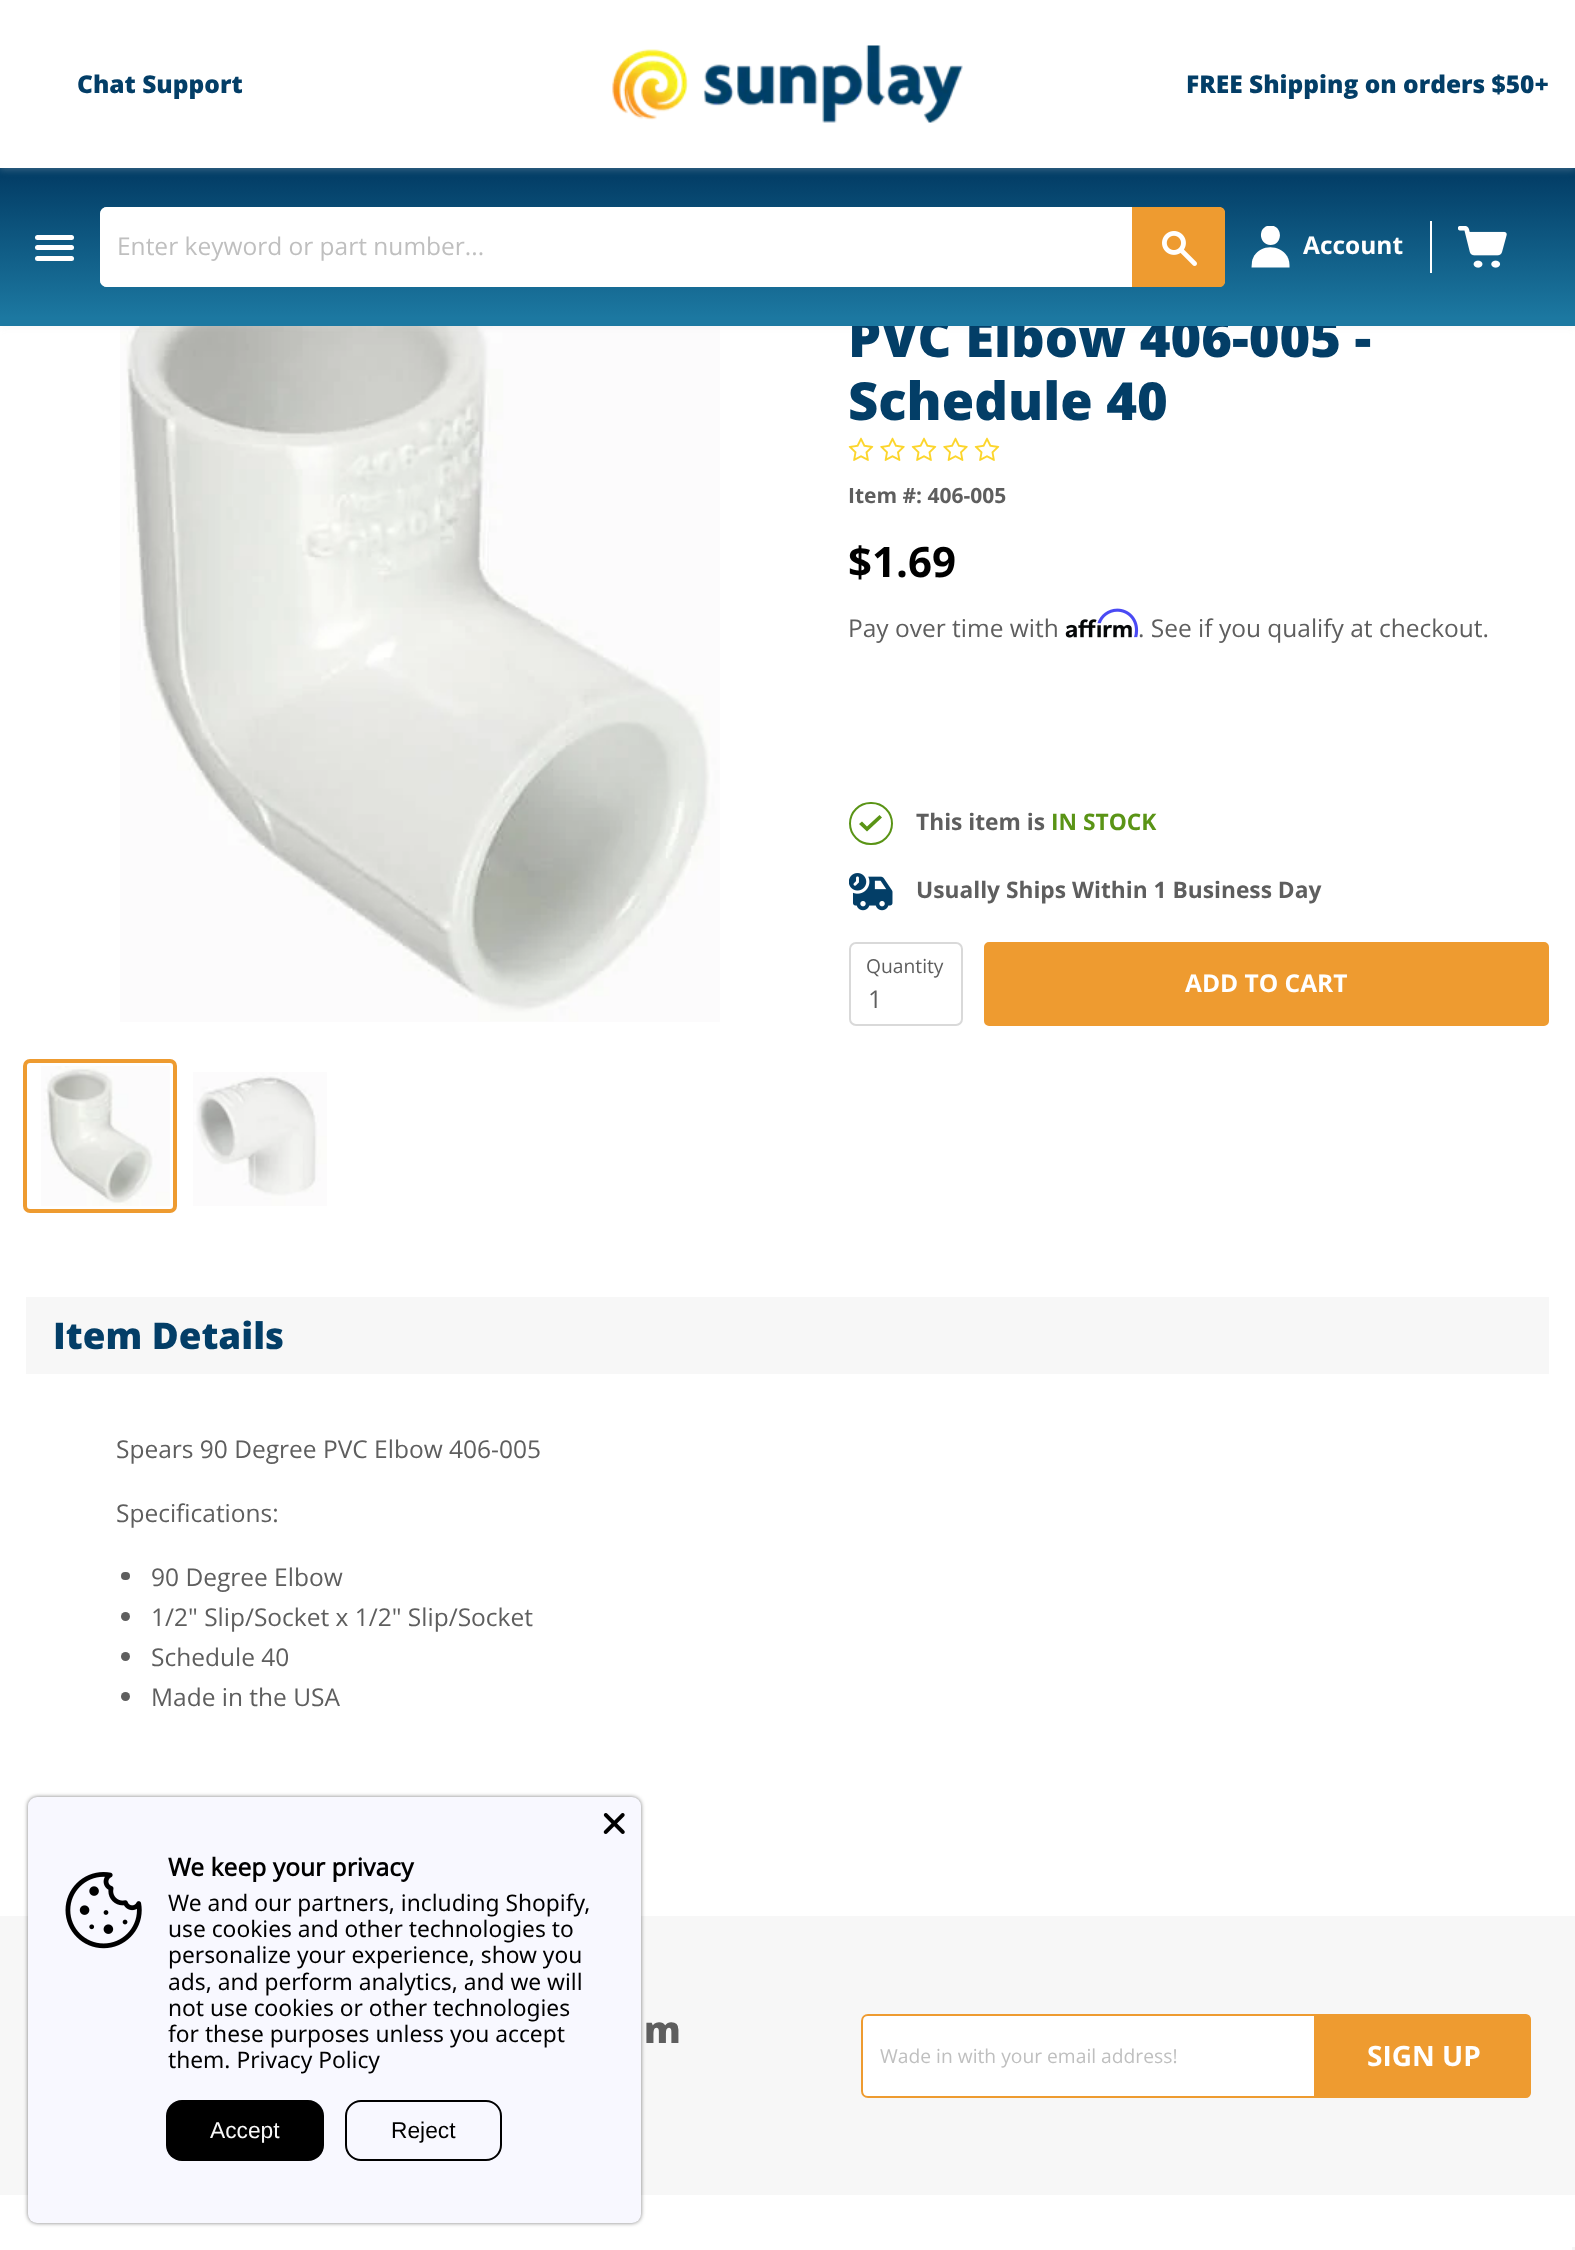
<svg xmlns="http://www.w3.org/2000/svg" width="1575" height="2250" viewBox="0 0 1575 2250">
  <defs>
    <linearGradient id="g1" gradientUnits="userSpaceOnUse" x1="788" y1="168" x2="788" y2="326"><stop offset="0.05" stop-color="rgb(3,62,103)"/><stop offset="0.95" stop-color="rgb(28,120,161)"/></linearGradient>
    <clipPath id="clip1"><rect x="1251" y="226" width="39" height="42"/></clipPath>
  </defs>
  <rect width="100%" height="100%" fill="rgb(255,255,255)"/>
  <image x="120" y="326" width="600" height="696" href="pic4.png"/>
  <rect x="0" y="170" width="1575" height="157" fill="rgba(217,217,217,0.25)" filter="blur(3.5px)"/>
  <text x="848" y="357" font-family="Open Sans" font-size="52.5" font-weight="800" fill="rgb(3,62,103)">PVC Elbow 406-005 -</text>
  <rect x="0" y="168" width="1575" height="158" fill="url(#g1)"/>
  <rect x="0" y="2" width="1575" height="168" fill="rgba(217,217,217,0.25)" filter="blur(3.5px)"/>
  <rect x="0" y="0" width="1575" height="168" fill="rgb(255,255,255)"/>
  <text x="77" y="93" font-family="Open Sans" font-size="24.5" font-weight="800" fill="rgb(3,62,103)">Chat Support</text>
  <image x="612" y="45" width="351" height="78" href="pic1.png"/>
  <text x="1186" y="93" font-family="Open Sans" font-size="24.5" font-weight="800" fill="rgb(3,62,103)">FREE Shipping on orders $50+</text>
  <rect x="35" y="235" width="39" height="5" rx="2.5" fill="rgb(255,255,255)"/>
  <rect x="35" y="245" width="39" height="5" rx="2.5" fill="rgb(255,255,255)"/>
  <rect x="35" y="256" width="39" height="5" rx="2.5" fill="rgb(255,255,255)"/>
  <rect x="100" y="207" width="1125" height="80" rx="7" fill="rgb(255,255,255)"/>
  <rect x="100" y="207" width="1032" height="80" rx="7" fill="rgb(255,255,255)"/>
  <text x="117" y="255" font-family="Open Sans" font-size="24.5" fill="rgb(191,191,191)">Enter keyword or part number...</text>
  <path d="M1133 208H1220C1222 208 1224 210 1224 212V282C1224 284 1222 286 1220 286H1133Z" fill="rgb(238,155,48)" stroke="rgb(238,155,48)" stroke-width="2"/>
  <image x="1162" y="231" width="35" height="35" href="pic2.png"/>
  <rect x="1430" y="221" width="2" height="52" fill="rgb(255,255,255)"/>
  <g clip-path="url(#clip1)">
    <path d="M1270.5 245C1258 245 1257.5 225.5 1270.5 225.5C1283 225.5 1283 245 1270.5 245Z" fill="rgb(255,255,255)" fill-rule="evenodd"/>
  </g>
  <path d="M1289.5 267.5H1251.5L1252 261.5C1256.5 240.5 1289 243.5 1289.5 265Z" fill="rgb(255,255,255)" fill-rule="evenodd"/>
  <text x="1303" y="254" font-family="Open Sans" font-size="24.5" font-weight="bold" fill="rgb(255,255,255)">Account</text>
  <image x="1458" y="226" width="49" height="42" href="pic3.png"/>
  <rect x="25" y="1061" width="150" height="150" rx="5" fill="none" stroke="rgb(238,155,48)" stroke-width="4"/>
  <image x="41" y="1066" width="129" height="140" href="pic5.png"/>
  <image x="193" y="1072" width="134" height="134" href="pic6.png"/>
  <text x="848" y="420" font-family="Open Sans" font-size="52.5" font-weight="800" fill="rgb(3,62,103)">Schedule 40</text>
  <image x="848" y="437" width="26" height="24" href="pic7.png"/>
  <image x="880" y="437" width="25" height="24" href="pic8.png"/>
  <image x="911" y="437" width="26" height="24" href="pic7.png"/>
  <image x="943" y="437" width="25" height="24" href="pic8.png"/>
  <image x="974" y="437" width="26" height="24" href="pic7.png"/>
  <text x="848" y="503" font-family="Open Sans" font-size="21" font-weight="bold" fill="rgb(94,94,94)">Item #: 406-005</text>
  <text x="848" y="577" font-family="Open Sans" font-size="42" font-weight="bold" fill="rgb(0,0,0)">$1.69</text>
  <text x="848" y="637" font-family="Open Sans" font-size="24.5" fill="rgb(94,94,94)">Pay over time with</text>
  <image x="1065" y="619" width="67" height="19" href="pic10.png"/>
  <image x="1097" y="608" width="42" height="30" href="pic9.png"/>
  <text x="1138" y="637" font-family="Open Sans" font-size="24.5" fill="rgb(94,94,94)">. See if you qualify at checkout.</text>
  <rect x="850" y="803" width="42" height="41" rx="20.5" fill="none" stroke="rgb(90,148,22)" stroke-width="2"/>
  <path d="M867 826.5L862 821.5L859 824L867 831.5L882 817.5L879.5 815Z" fill="rgb(90,148,22)" fill-rule="evenodd"/>
  <text x="916" y="830" font-family="Open Sans" font-size="22.75" font-weight="bold" fill="rgb(94,94,94)">This item is</text>
  <text x="1051" y="830" font-family="Open Sans" font-size="22.75" font-weight="bold" fill="rgb(90,148,22)">IN STOCK</text>
  <image x="849" y="873" width="44" height="38" href="pic11.png"/>
  <text x="916" y="898" font-family="Open Sans" font-size="22.75" font-weight="bold" fill="rgb(94,94,94)">Usually Ships Within 1 Business Day</text>
  <rect x="850" y="943" width="112" height="82" rx="6" fill="none" stroke="rgb(217,217,217)" stroke-width="2"/>
  <text x="866" y="973" font-family="Open Sans" font-size="19.25" fill="rgb(94,94,94)">Quantity</text>
  <text x="868" y="1008" font-family="Open Sans" font-size="24.5" fill="rgb(94,94,94)">1</text>
  <rect x="985" y="943" width="563" height="82" rx="4" fill="rgb(238,155,48)" stroke="rgb(238,155,48)" stroke-width="2"/>
  <text x="1185" y="992" font-family="Open Sans" font-size="24.5" font-weight="bold" fill="rgb(255,255,255)">ADD TO CART</text>
  <rect x="26" y="1297" width="1523" height="77" fill="rgb(247,247,247)"/>
  <text x="53" y="1349" font-family="Open Sans" font-size="36.75" font-weight="800" fill="rgb(3,62,103)">Item Details</text>
  <g font-family="Open Sans" font-size="24.5" fill="rgb(94,94,94)">
    <text x="116" y="1458">Spears 90 Degree PVC Elbow 406-005</text>
    <text x="116" y="1522">Specifications:</text>
  </g>
  <rect x="121" y="1572" width="9" height="8" rx="4" fill="rgb(94,94,94)"/>
  <text x="151" y="1586" font-family="Open Sans" font-size="24.5" fill="rgb(94,94,94)">90 Degree Elbow</text>
  <circle cx="125.5" cy="1616.5" r="4.5" fill="rgb(94,94,94)"/>
  <text x="151" y="1626" font-family="Open Sans" font-size="24.5" fill="rgb(94,94,94)">1/2" Slip/Socket x 1/2" Slip/Socket</text>
  <circle cx="125.5" cy="1656.5" r="4.5" fill="rgb(94,94,94)"/>
  <text x="151" y="1666" font-family="Open Sans" font-size="24.5" fill="rgb(94,94,94)">Schedule 40</text>
  <circle cx="125.5" cy="1696.5" r="4.5" fill="rgb(94,94,94)"/>
  <text x="151" y="1706" font-family="Open Sans" font-size="24.5" fill="rgb(94,94,94)">Made in the USA</text>
  <rect x="0" y="1916" width="1575" height="279" fill="rgb(247,247,247)"/>
  <rect x="28" y="1797" width="613" height="426" rx="9" fill="rgba(0,0,0,0.5)" filter="blur(2px)"/>
  <rect x="28" y="1797" width="613" height="426" rx="9" fill="rgb(248,248,255)"/>
  <image x="603" y="1813" width="22" height="21" href="pic12.png"/>
  <image x="65" y="1872" width="77" height="77" href="pic13.png"/>
  <text x="168" y="1876" font-family="Noto Sans" font-size="24.5" font-weight="bold" fill="rgb(0,0,0)">We keep your privacy</text>
  <g font-family="Noto Sans" font-size="22.75" fill="rgb(0,0,0)">
    <text>
      <tspan x="168" y="1911">We and our partners, including Shopify,</tspan>
      <tspan x="168" y="1937">use cookies and other technologies to</tspan>
      <tspan x="168" y="1963">personalize your experience, show you</tspan>
      <tspan x="168" y="1990">ads, and perform analytics, and we will</tspan>
      <tspan x="168" y="2016">not use cookies or other technologies</tspan>
      <tspan x="168" y="2042">for these purposes unless you accept</tspan>
      <tspan x="168" y="2068">them. Privacy Policy</tspan>
    </text>
  </g>
  <rect x="166" y="2100" width="158" height="61" rx="16" fill="rgb(0,0,0)"/>
  <text x="210" y="2138" font-family="Liberation Sans" font-size="22.75" fill="rgb(248,248,248)">Accept</text>
  <rect x="346" y="2101" width="155" height="59" rx="15" fill="none" stroke="rgb(0,0,0)" stroke-width="2"/>
  <text x="391" y="2138" font-family="Liberation Sans" font-size="22.75" fill="rgb(0,0,0)">Reject</text>
  <text x="644" y="2043" font-family="Open Sans" font-size="36.75" font-weight="800" fill="rgb(94,94,94)">m</text>
  <path d="M868 2015H1315V2097H868C864.5 2097 862 2094.5 862 2091V2021C862 2017.5 864.5 2015 868 2015Z" fill="rgb(255,255,255)" stroke="rgb(238,155,48)" stroke-width="2"/>
  <text x="880" y="2063" font-family="Open Sans" font-size="19.25" fill="rgb(191,191,191)">Wade in with your email address!</text>
  <path d="M1317 2015H1526C1528 2015 1530 2017 1530 2019V2093C1530 2095 1528 2097 1526 2097H1317Z" fill="rgb(238,155,48)" stroke="rgb(238,155,48)" stroke-width="2"/>
  <text x="1367" y="2066" font-family="Open Sans" font-size="28" font-weight="bold" fill="rgb(255,255,255)">SIGN UP</text>
  <rect x="1572" y="2247" width="3" height="3" fill="rgb(245,245,245)"/>
</svg>
